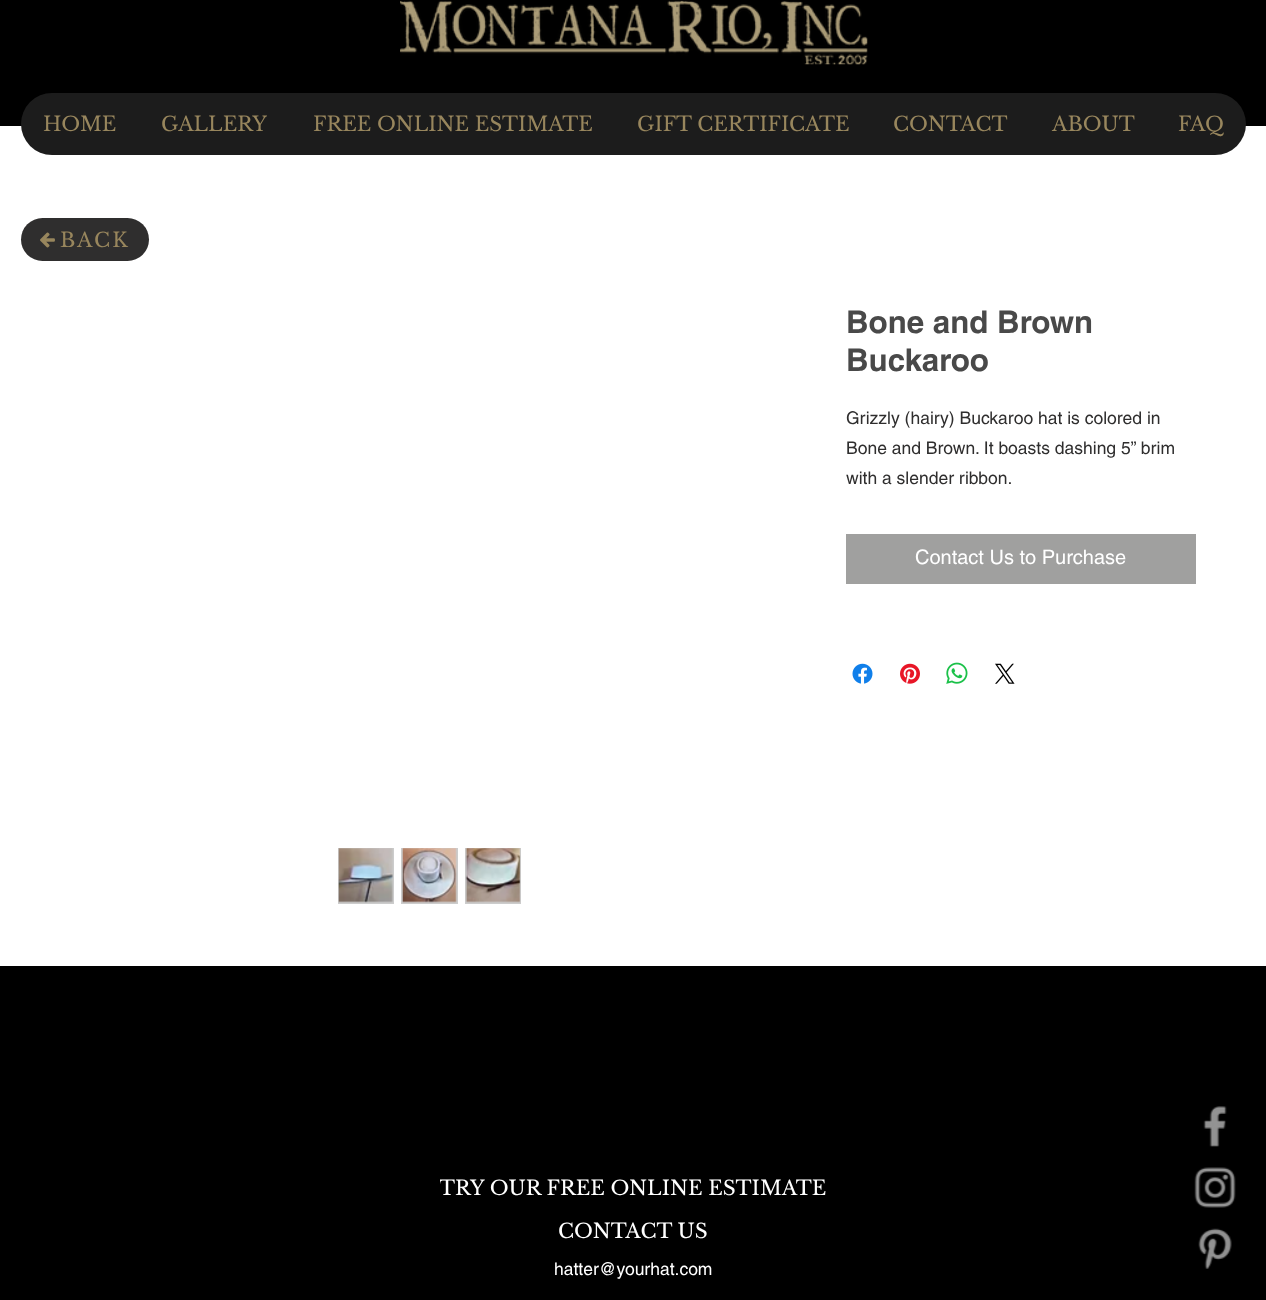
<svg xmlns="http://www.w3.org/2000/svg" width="1266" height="1300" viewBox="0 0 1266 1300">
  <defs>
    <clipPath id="clip1"><rect x="440" y="1175" width="386" height="25"/></clipPath>
  </defs>
  <rect width="100%" height="100%" fill="rgb(0,0,0)"/>
  <image x="400" y="0" width="468" height="65" href="pic1.png"/>
  <rect x="0" y="126" width="1266" height="840" fill="rgb(255,255,255)"/>
  <rect x="21" y="93" width="1225" height="62" rx="31" fill="rgb(28,28,28)"/>
  <g font-family="Libre Baskerville" font-size="20" fill="rgb(152,134,93)">
    <text x="43" y="131">HOME</text>
    <text x="161" y="131">GALLERY</text>
    <text x="313" y="131">FREE ONLINE ESTIMATE</text>
    <text x="637" y="131">GIFT CERTIFICATE</text>
    <text x="893" y="131">CONTACT</text>
    <text x="1052" y="131">ABOUT</text>
    <text x="1178" y="131">FAQ</text>
  </g>
  <rect x="21" y="218" width="128" height="43" rx="21.5" fill="rgb(47,46,46)"/>
  <image x="40" y="232" width="15" height="16" href="pic2.png"/>
  <text x="60" y="247" font-family="Libre Baskerville" font-size="20" letter-spacing="2" fill="rgb(152,134,93)">BACK</text>
  <g font-family="helvetica" font-size="31.25" font-weight="bold" fill="rgb(73,73,73)">
    <text>
      <tspan x="846" y="333">Bone and Brown</tspan>
      <tspan x="846" y="371">Buckaroo</tspan>
    </text>
  </g>
  <g font-family="helvetica" font-size="17.5" fill="rgb(47,46,46)">
    <text>
      <tspan x="846" y="424">Grizzly (hairy) Buckaroo hat is colored in</tspan>
      <tspan x="846" y="454">Bone and Brown. It boasts dashing 5” brim</tspan>
      <tspan x="846" y="484">with a slender ribbon.</tspan>
    </text>
  </g>
  <rect x="846" y="534" width="350" height="50" fill="rgb(160,160,159)"/>
  <text x="915" y="564" font-family="helvetica" font-size="20" fill="rgb(255,255,255)">Contact Us to Purchase</text>
  <image x="852" y="663" width="21" height="21" href="pic3.png"/>
  <image x="900" y="663" width="20" height="21" href="pic4.png"/>
  <image x="946" y="662" width="22" height="22" href="pic5.png"/>
  <image x="995" y="663" width="20" height="21" href="pic6.png"/>
  <rect x="338" y="848" width="56" height="56" fill="rgb(204,204,204)"/>
  <image x="338" y="848" width="55" height="55" href="pic7.png"/>
  <rect x="401" y="848" width="57" height="56" fill="rgb(204,204,204)"/>
  <image x="402" y="848" width="55" height="55" href="pic8.png"/>
  <rect x="465" y="848" width="56" height="56" fill="rgb(204,204,204)"/>
  <image x="465" y="848" width="56" height="55" href="pic9.png"/>
  <g clip-path="url(#clip1)">
    <text x="439" y="1195" font-family="Libre Baskerville" font-size="20" fill="rgb(255,255,255)">TRY OUR FREE ONLINE ESTIMATE</text>
  </g>
  <text x="558" y="1238" font-family="Libre Baskerville" font-size="20" fill="rgb(255,255,255)">CONTACT US</text>
  <text x="554" y="1275" font-family="helvetica" font-size="17.5" fill="rgb(255,255,255)">hatter@yourhat.com</text>
  <image x="1203" y="1106" width="24" height="41" href="pic10.png"/>
  <image x="1194" y="1167" width="42" height="41" href="pic11.png"/>
  <image x="1198" y="1228" width="34" height="41" href="pic12.png"/>
</svg>
